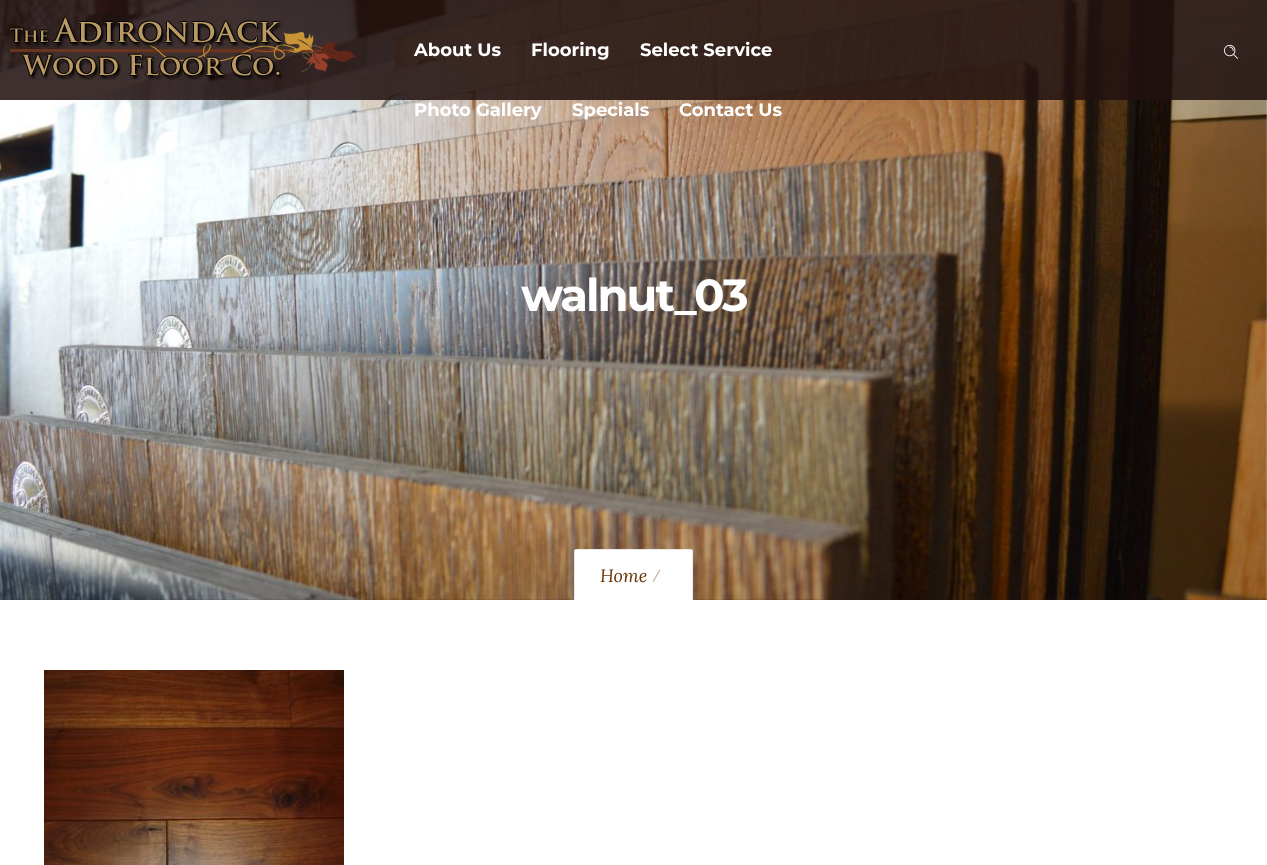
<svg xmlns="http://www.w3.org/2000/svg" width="1267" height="865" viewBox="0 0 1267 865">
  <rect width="100%" height="100%" fill="rgb(255,255,255)"/>
  <image x="0" y="0" width="1267" height="600" href="pic3.png"/>
  <rect x="0" y="0" width="1267" height="100" fill="rgba(33,17,16,0.87)"/>
  <image x="10" y="16" width="346" height="64" href="pic1.png"/>
  <g font-family="Montserrat" font-size="18" font-weight="bold" fill="rgb(255,255,255)">
    <text x="414" y="56">About Us</text>
    <text x="531" y="56">Flooring</text>
    <text x="640" y="56">Select Service</text>
    <text x="414" y="116">Photo Gallery</text>
    <text x="572" y="116">Specials</text>
    <text x="679" y="116">Contact Us</text>
  </g>
  <image x="1224" y="44" width="14" height="15" href="pic2.png"/>
  <rect x="0" y="599" width="1267" height="1" fill="rgba(27,27,27,0.1)"/>
  <text x="521" y="311" font-family="Montserrat" font-size="45" font-weight="bold" letter-spacing="-2" fill="rgb(255,255,255)">walnut_03</text>
  <path d="M576 549H691C692 549 693 550 693 551V600H574V551C574 550 575 549 576 549Z" fill="rgb(255,255,255)"/>
  <rect x="575" y="549" width="117" height="1" fill="rgba(27,27,27,0.1)"/>
  <rect x="692" y="550" width="1" height="50" fill="rgba(27,27,27,0.1)"/>
  <rect x="574" y="550" width="1" height="50" fill="rgba(27,27,27,0.1)"/>
  <text x="600" y="582" font-family="Lora" font-size="18" font-style="italic" fill="rgb(102,51,0)">Home</text>
  <path d="M659.5 569.5L660.5 570L653.5 582L652.5 581.5Z" fill="rgb(194,173,153)"/>
  <image x="44" y="670" width="300" height="195" href="pic4.png"/>
</svg>
